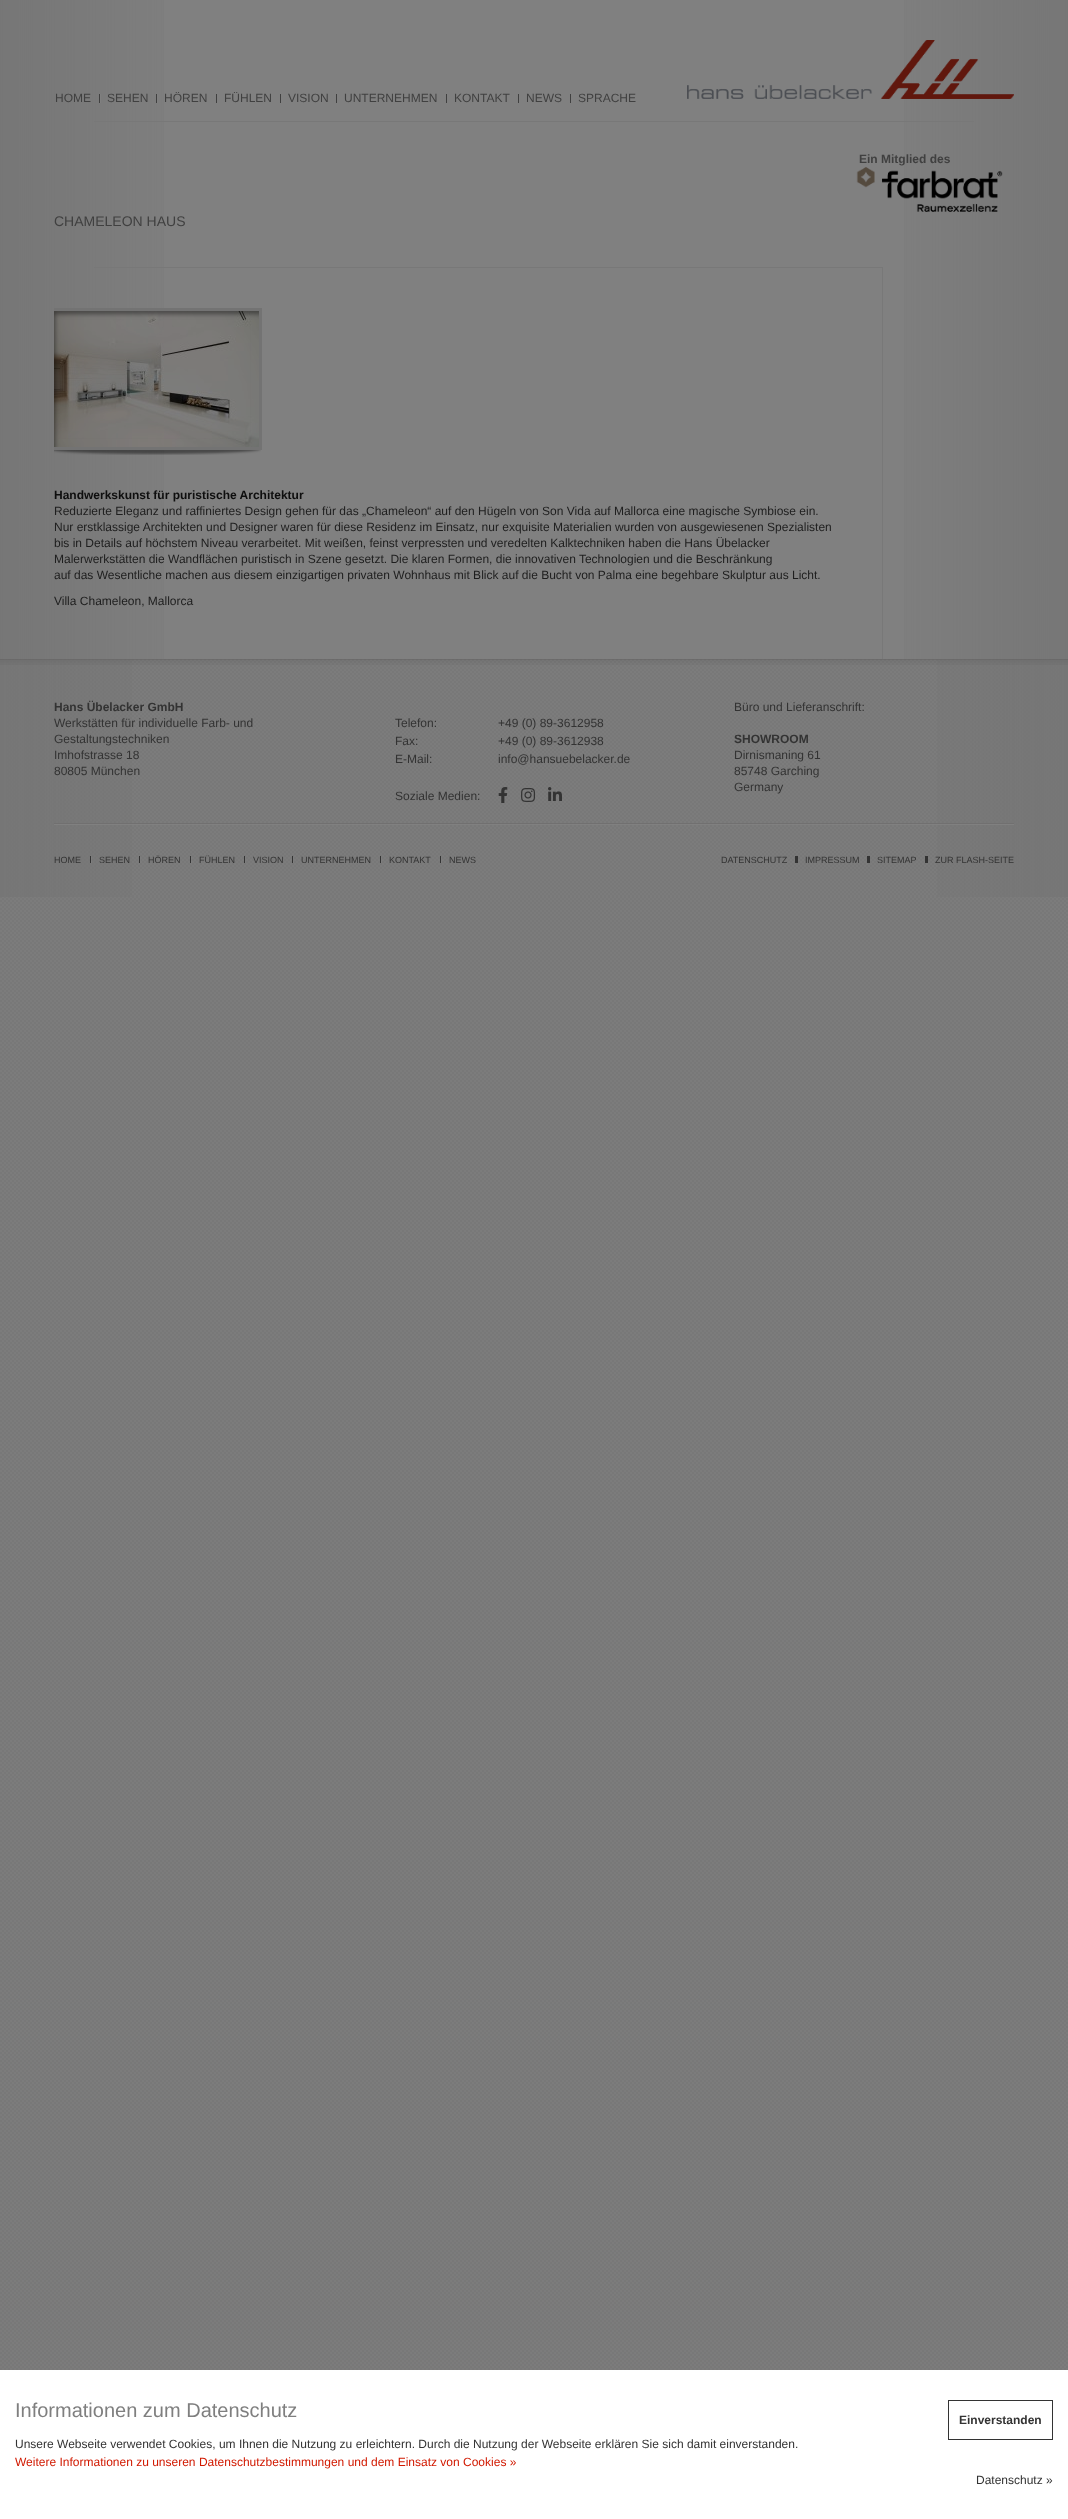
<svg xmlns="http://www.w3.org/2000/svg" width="1068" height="2519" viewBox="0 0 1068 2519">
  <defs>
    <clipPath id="clip1"><rect x="54" y="268" width="828" height="391"/></clipPath>
  </defs>
  <rect width="100%" height="100%" fill="rgb(255,255,255)"/>
  <image x="0" y="896" width="1068" height="1474" href="pic1.png"/>
  <rect x="0" y="0" width="1068" height="659" fill="rgb(128,128,128)"/>
  <image x="904" y="0" width="164" height="659" href="pic2.png"/>
  <image x="0" y="0" width="164" height="659" href="pic3.png"/>
  <rect x="94" y="121" width="880" height="1" fill="rgb(120,120,120)"/>
  <text x="55" y="102" font-family="Liberation Sans" font-size="12" fill="rgb(64,64,64)">HOME</text>
  <image x="99" y="94" width="2" height="9" href="pic4.png"/>
  <text x="107" y="102" font-family="Liberation Sans" font-size="12" fill="rgb(64,64,64)">SEHEN</text>
  <image x="156" y="94" width="2" height="9" href="pic4.png"/>
  <text x="164" y="102" font-family="Liberation Sans" font-size="12" fill="rgb(64,64,64)">HÖREN</text>
  <rect x="216" y="94" width="1" height="9" fill="rgb(64,64,64)"/>
  <text x="224" y="102" font-family="Liberation Sans" font-size="12" fill="rgb(64,64,64)">FÜHLEN</text>
  <rect x="280" y="94" width="1" height="9" fill="rgb(64,64,64)"/>
  <text x="288" y="102" font-family="Liberation Sans" font-size="12" fill="rgb(64,64,64)">VISION</text>
  <rect x="336" y="94" width="1" height="9" fill="rgb(64,64,64)"/>
  <text x="344" y="102" font-family="Liberation Sans" font-size="12" fill="rgb(64,64,64)">UNTERNEHMEN</text>
  <rect x="446" y="94" width="1" height="9" fill="rgb(64,64,64)"/>
  <text x="454" y="102" font-family="Liberation Sans" font-size="12" fill="rgb(64,64,64)">KONTAKT</text>
  <rect x="518" y="94" width="1" height="9" fill="rgb(64,64,64)"/>
  <text x="526" y="102" font-family="Liberation Sans" font-size="12" fill="rgb(64,64,64)">NEWS</text>
  <rect x="570" y="94" width="1" height="9" fill="rgb(64,64,64)"/>
  <text x="578" y="102" font-family="Liberation Sans" font-size="12" fill="rgb(64,64,64)">SPRACHE</text>
  <image x="687" y="40" width="327" height="59" href="pic5.png"/>
  <text x="859" y="163" font-family="Liberation Sans" font-size="12" font-weight="bold" fill="rgb(64,64,64)">Ein Mitglied des</text>
  <image x="856" y="167" width="147" height="45" href="pic6.png"/>
  <text x="54" y="226" font-family="Liberation Sans" font-size="14" fill="rgb(64,64,64)">CHAMELEON HAUS</text>
  <rect x="94" y="267" width="789" height="1" fill="rgb(120,120,120)"/>
  <rect x="882" y="267" width="1" height="392" fill="rgb(120,120,120)"/>
  <image x="54" y="450" width="207" height="5" href="pic7.png"/>
  <g clip-path="url(#clip1)">
    <rect x="50.5" y="309.5" width="210" height="139" fill="none" stroke="rgb(115,115,115)" stroke-width="3"/>
  </g>
  <image x="54" y="311" width="205" height="136" href="pic8.png"/>
  <image x="54" y="311" width="205" height="136" href="pic9.png"/>
  <text x="54" y="499" font-family="Liberation Sans" font-size="12" font-weight="bold" fill="rgb(14,14,14)">Handwerkskunst für puristische Architektur</text>
  <g font-family="Liberation Sans" font-size="12" fill="rgb(30,30,30)">
    <text>
      <tspan x="54" y="515">Reduzierte Eleganz und raffiniertes Design gehen für das „Chameleon“ auf den Hügeln von Son Vida auf Mallorca eine magische Symbiose ein.</tspan>
      <tspan x="54" y="531">Nur erstklassige Architekten und Designer waren für diese Residenz im Einsatz, nur exquisite Materialien wurden von ausgewiesenen Spezialisten</tspan>
      <tspan x="54" y="547">bis in Details auf höchstem Niveau verarbeitet. Mit weißen, feinst verpressten und veredelten Kalktechniken haben die Hans Übelacker</tspan>
      <tspan x="54" y="563">Malerwerkstätten die Wandflächen puristisch in Szene gesetzt. Die klaren Formen, die innovativen Technologien und die Beschränkung</tspan>
      <tspan x="54" y="579">auf das Wesentliche machen aus diesem einzigartigen privaten Wohnhaus mit Blick auf die Bucht von Palma eine begehbare Skulptur aus Licht.</tspan>
    </text>
    <text x="54" y="605">Villa Chameleon, Mallorca</text>
  </g>
  <image x="0" y="659" width="1068" height="237" href="pic10.png"/>
  <image x="937" y="659" width="131" height="238" href="pic11.png"/>
  <image x="0" y="659" width="132" height="238" href="pic12.png"/>
  <image x="0" y="659" width="1068" height="6" href="pic13.png"/>
  <image x="54" y="823" width="960" height="2" href="pic14.png"/>
  <text x="54" y="711" font-family="Liberation Sans" font-size="12" font-weight="bold" fill="rgb(51,51,51)">Hans Übelacker GmbH</text>
  <g font-family="Liberation Sans" font-size="12" fill="rgb(51,51,51)">
    <text>
      <tspan x="54" y="727">Werkstätten für individuelle Farb- und</tspan>
      <tspan x="54" y="743">Gestaltungstechniken</tspan>
      <tspan x="54" y="759">Imhofstrasse 18</tspan>
      <tspan x="54" y="775">80805 München</tspan>
    </text>
    <text x="395" y="727">Telefon:</text>
    <text x="498" y="727">+49 (0) 89-3612958</text>
    <text x="395" y="745">Fax:</text>
    <text x="498" y="745">+49 (0) 89-3612938</text>
    <text x="395" y="763">E-Mail:</text>
    <text x="498" y="763">info@hansuebelacker.de</text>
    <text x="395" y="800">Soziale Medien:</text>
  </g>
  <image x="498" y="787" width="10" height="16" href="pic15.png"/>
  <image x="521" y="788" width="15" height="14" href="pic16.png"/>
  <image x="548" y="787" width="14" height="14" href="pic17.png"/>
  <text x="734" y="711" font-family="Liberation Sans" font-size="12" fill="rgb(51,51,51)">Büro und Lieferanschrift:</text>
  <text x="734" y="743" font-family="Liberation Sans" font-size="12" font-weight="bold" fill="rgb(51,51,51)">SHOWROOM</text>
  <g font-family="Liberation Sans" font-size="12" fill="rgb(51,51,51)">
    <text>
      <tspan x="734" y="759">Dirnismaning 61</tspan>
      <tspan x="734" y="775">85748 Garching</tspan>
      <tspan x="734" y="791">Germany</tspan>
    </text>
  </g>
  <text x="54" y="863" font-family="Liberation Sans" font-size="9" fill="rgb(51,51,51)">HOME</text>
  <image x="90" y="856" width="2" height="7" href="pic18.png"/>
  <text x="99" y="863" font-family="Liberation Sans" font-size="9" fill="rgb(51,51,51)">SEHEN</text>
  <image x="139" y="856" width="2" height="7" href="pic18.png"/>
  <text x="148" y="863" font-family="Liberation Sans" font-size="9" fill="rgb(51,51,51)">HÖREN</text>
  <image x="190" y="856" width="2" height="7" href="pic18.png"/>
  <text x="199" y="863" font-family="Liberation Sans" font-size="9" fill="rgb(51,51,51)">FÜHLEN</text>
  <image x="244" y="856" width="2" height="7" href="pic18.png"/>
  <text x="253" y="863" font-family="Liberation Sans" font-size="9" fill="rgb(51,51,51)">VISION</text>
  <image x="292" y="856" width="2" height="7" href="pic18.png"/>
  <text x="301" y="863" font-family="Liberation Sans" font-size="9" fill="rgb(51,51,51)">UNTERNEHMEN</text>
  <image x="380" y="856" width="2" height="7" href="pic18.png"/>
  <text x="389" y="863" font-family="Liberation Sans" font-size="9" fill="rgb(51,51,51)">KONTAKT</text>
  <image x="440" y="856" width="2" height="7" href="pic18.png"/>
  <text x="449" y="863" font-family="Liberation Sans" font-size="9" fill="rgb(51,51,51)">NEWS</text>
  <rect x="795" y="856" width="3" height="7" fill="rgb(51,51,51)"/>
  <text x="721" y="863" font-family="Liberation Sans" font-size="9" fill="rgb(51,51,51)">DATENSCHUTZ</text>
  <rect x="867" y="856" width="3" height="7" fill="rgb(51,51,51)"/>
  <text x="805" y="863" font-family="Liberation Sans" font-size="9" fill="rgb(51,51,51)">IMPRESSUM</text>
  <rect x="925" y="856" width="3" height="7" fill="rgb(51,51,51)"/>
  <g font-family="Liberation Sans" font-size="9" fill="rgb(51,51,51)">
    <text x="877" y="863">SITEMAP</text>
    <text x="935" y="863">ZUR FLASH-SEITE</text>
  </g>
  <text x="15" y="2417" font-family="Liberation Sans" font-size="20" fill="rgb(127,127,127)">Informationen zum Datenschutz</text>
  <rect x="948.5" y="2400.5" width="104" height="39" fill="none" stroke="rgb(51,51,51)"/>
  <text x="959" y="2424" font-family="Liberation Sans" font-size="12" font-weight="bold" fill="rgb(51,51,51)">Einverstanden</text>
  <text x="15" y="2448" font-family="Liberation Sans" font-size="12" fill="rgb(51,51,51)">Unsere Webseite verwendet Cookies, um Ihnen die Nutzung zu erleichtern. Durch die Nutzung der Webseite erklären Sie sich damit einverstanden.</text>
  <text x="15" y="2466" font-family="Liberation Sans" font-size="12" fill="rgb(209,25,0)">Weitere Informationen zu unseren Datenschutzbestimmungen und dem Einsatz von Cookies »</text>
  <text x="976" y="2484" font-family="Liberation Sans" font-size="12" fill="rgb(51,51,51)">Datenschutz »</text>
</svg>
